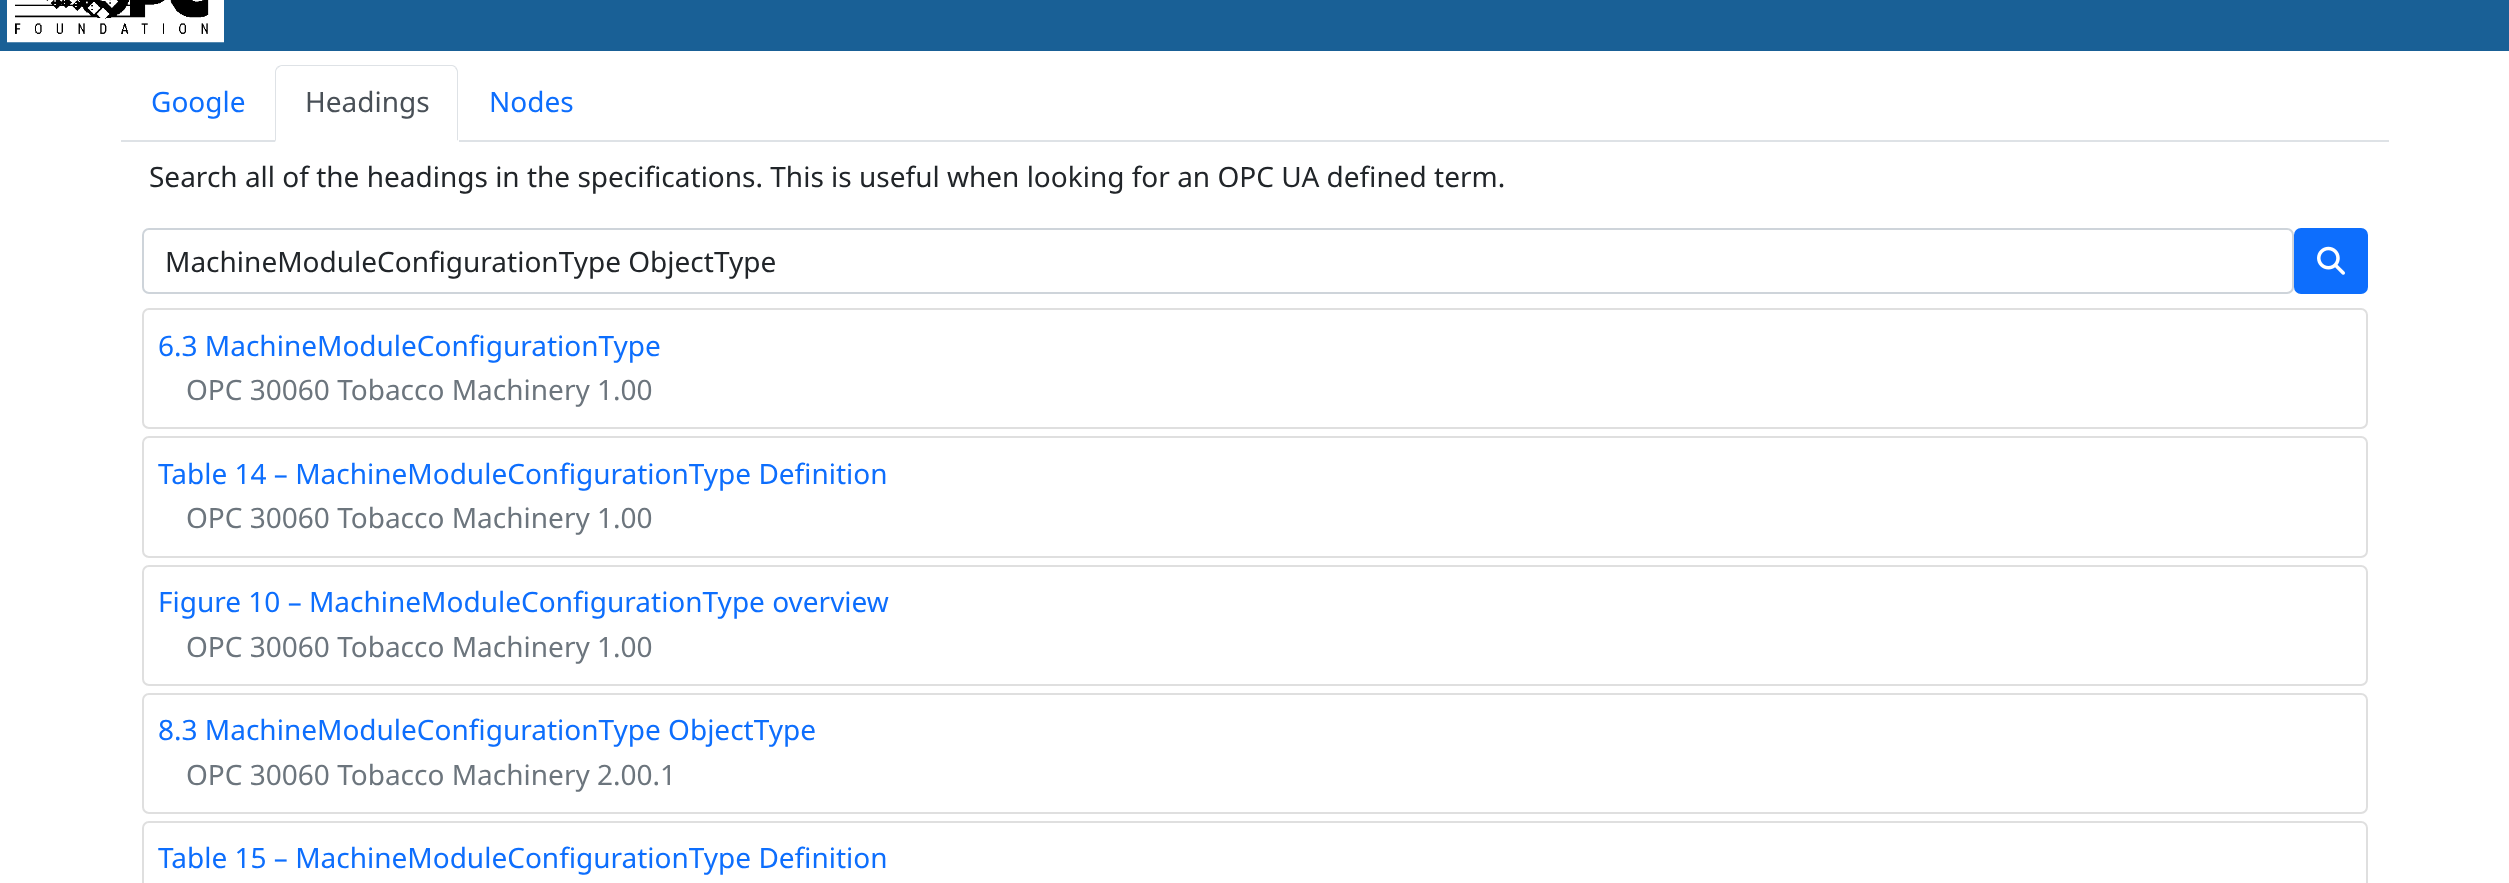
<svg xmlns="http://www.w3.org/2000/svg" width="2509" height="883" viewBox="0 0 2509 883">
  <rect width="100%" height="100%" fill="rgb(255,255,255)"/>
  <rect x="0" y="0" width="2509" height="51" fill="rgb(25,96,150)"/>
  <image x="7" y="0" width="217" height="43" href="pic1.png"/>
  <rect x="121" y="140" width="2268" height="2" fill="rgb(222,226,230)"/>
  <text x="151" y="112" font-family="Noto Sans" font-size="28" fill="rgb(13,110,253)">Google</text>
  <path d="M282 65H452C456 65 459 68 459 72V142H275V72C275 68 278 65 282 65Z" fill="rgb(255,255,255)"/>
  <path d="M282 65C280 65 278 66 277 67L278 68L281 66H452C453 66 455 67 455 68L456 67C455 66 454 65 452 65Z" fill="rgb(222,226,230)"/>
  <path d="M458 141V72C458 70 457 68 456 67L455 68C456 69 457 71 457 72V140Z" fill="rgb(222,226,230)"/>
  <path d="M275 142L276 140H457L458 141V142Z" fill="rgb(255,255,255)"/>
  <path d="M277 67C276 68 275 70 275 72V142L276 140V72C276 70 277 69 278 68Z" fill="rgb(222,226,230)"/>
  <text x="305" y="112" font-family="Noto Sans" font-size="28" fill="rgb(73,80,87)">Headings</text>
  <text x="489" y="112" font-family="Noto Sans" font-size="28" fill="rgb(13,110,253)">Nodes</text>
  <text x="149" y="187" font-family="Noto Sans" font-size="28" fill="rgb(33,37,41)">Search all of the headings in the specifications. This is useful when looking for an OPC UA defined term.</text>
  <rect x="143" y="229" width="2150" height="64" rx="6" fill="none" stroke="rgb(206,212,218)" stroke-width="2"/>
  <text x="165" y="272" font-family="Noto Sans" font-size="28" fill="rgb(33,37,41)">MachineModuleConfigurationType ObjectType</text>
  <rect x="2295" y="229" width="72" height="64" rx="6" fill="rgb(13,110,253)" stroke="rgb(13,110,253)" stroke-width="2"/>
  <image x="2317" y="246" width="28" height="29" href="pic2.png"/>
  <rect x="143" y="309" width="2224" height="119" rx="6" fill="none" stroke="rgb(223,223,223)" stroke-width="2"/>
  <text x="158" y="356" font-family="Noto Sans" font-size="28" fill="rgb(13,110,253)">6.3 MachineModuleConfigurationType</text>
  <text x="186" y="400" font-family="Noto Sans" font-size="28" fill="rgb(108,117,125)">OPC 30060 Tobacco Machinery 1.00</text>
  <rect x="143" y="437" width="2224" height="120" rx="6" fill="none" stroke="rgb(223,223,223)" stroke-width="2"/>
  <text x="158" y="484" font-family="Noto Sans" font-size="28" fill="rgb(13,110,253)">Table 14 – MachineModuleConfigurationType Definition</text>
  <text x="186" y="528" font-family="Noto Sans" font-size="28" fill="rgb(108,117,125)">OPC 30060 Tobacco Machinery 1.00</text>
  <rect x="143" y="566" width="2224" height="119" rx="6" fill="none" stroke="rgb(223,223,223)" stroke-width="2"/>
  <text x="158" y="612" font-family="Noto Sans" font-size="28" fill="rgb(13,110,253)">Figure 10 – MachineModuleConfigurationType overview</text>
  <text x="186" y="657" font-family="Noto Sans" font-size="28" fill="rgb(108,117,125)">OPC 30060 Tobacco Machinery 1.00</text>
  <rect x="143" y="694" width="2224" height="119" rx="6" fill="none" stroke="rgb(223,223,223)" stroke-width="2"/>
  <text x="158" y="740" font-family="Noto Sans" font-size="28" fill="rgb(13,110,253)">8.3 MachineModuleConfigurationType ObjectType</text>
  <text x="186" y="785" font-family="Noto Sans" font-size="28" fill="rgb(108,117,125)">OPC 30060 Tobacco Machinery 2.00.1</text>
  <rect x="143" y="822" width="2224" height="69" rx="6" fill="none" stroke="rgb(223,223,223)" stroke-width="2"/>
  <text x="158" y="868" font-family="Noto Sans" font-size="28" fill="rgb(13,110,253)">Table 15 – MachineModuleConfigurationType Definition</text>
</svg>
